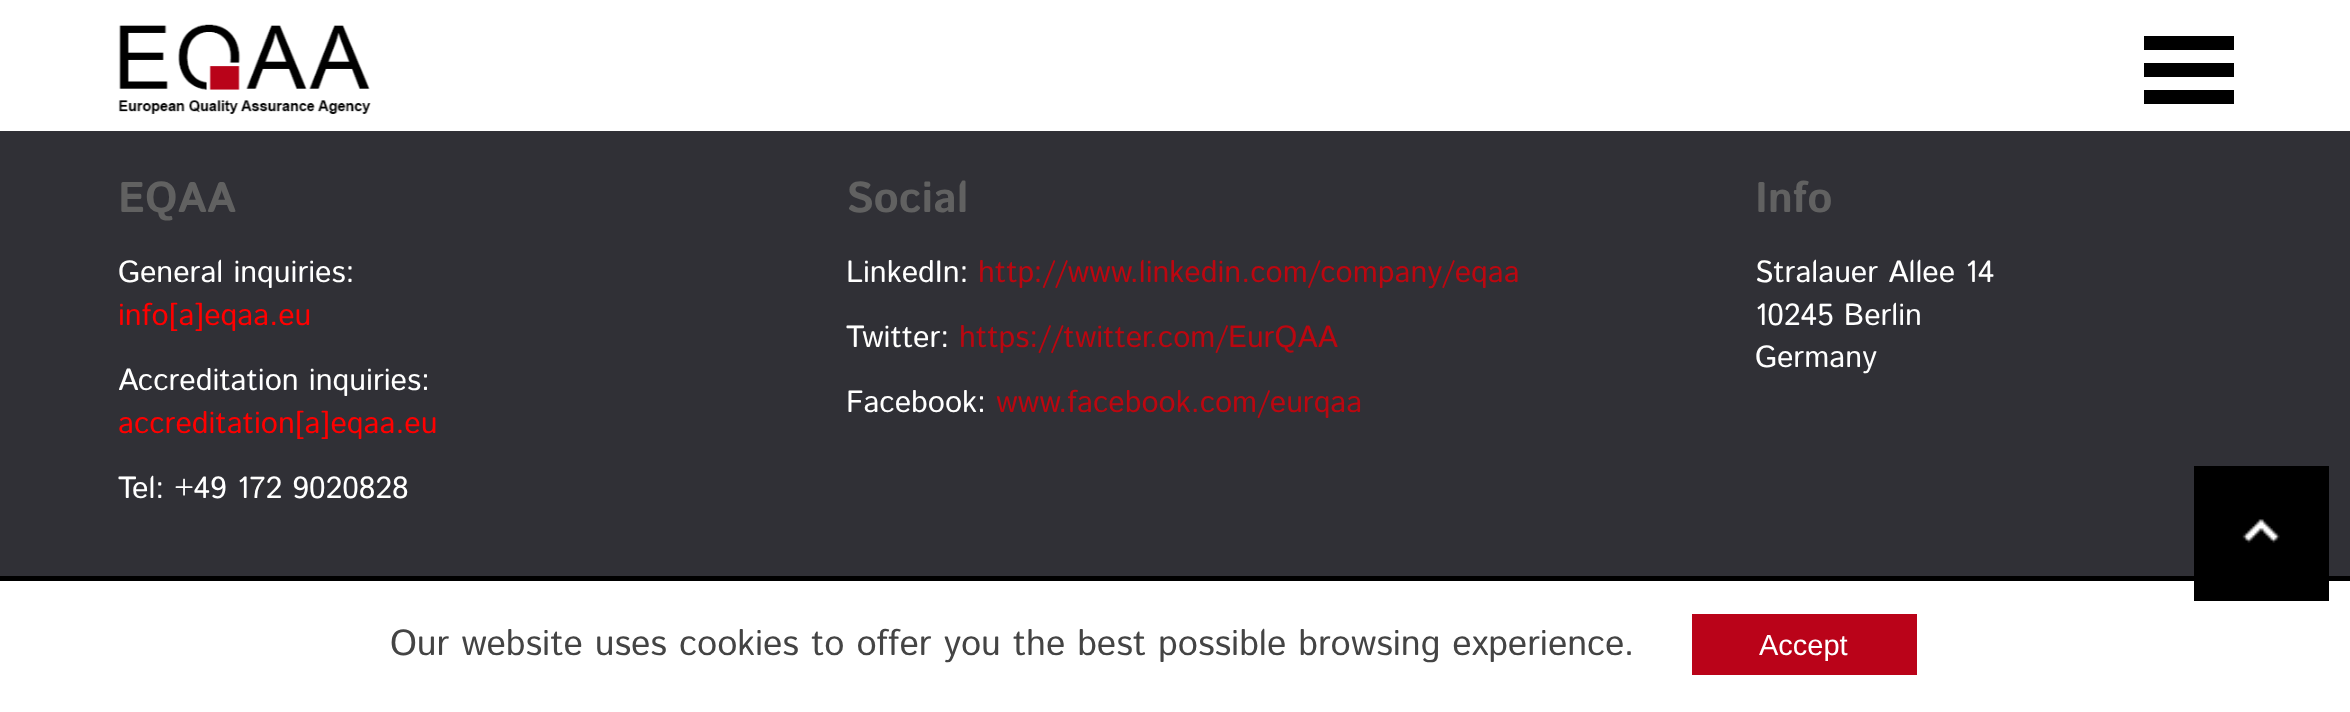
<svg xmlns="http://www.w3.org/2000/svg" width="2350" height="712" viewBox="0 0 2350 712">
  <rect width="100%" height="100%" fill="rgb(48,48,54)"/>
  <rect x="0" y="0" width="2350" height="131" fill="rgb(255,255,255)"/>
  <image x="118" y="24" width="253" height="90" href="pic1.png"/>
  <rect x="2144" y="36" width="90" height="14" fill="rgb(0,0,0)"/>
  <rect x="2144" y="63" width="90" height="14" fill="rgb(0,0,0)"/>
  <rect x="2144" y="90" width="90" height="14" fill="rgb(0,0,0)"/>
  <text x="118" y="212" font-family="Istok Web" font-size="43" font-weight="bold" fill="rgb(97,97,97)">EQAA</text>
  <text x="118" y="282" font-family="Istok Web" font-size="30.6" fill="rgb(255,255,255)">General inquiries:</text>
  <text x="118" y="325" font-family="Istok Web" font-size="30.6" fill="rgb(255,0,0)">info[a]eqaa.eu</text>
  <text x="118" y="390" font-family="Istok Web" font-size="30.6" fill="rgb(255,255,255)">Accreditation inquiries:</text>
  <text x="118" y="433" font-family="Istok Web" font-size="30.6" fill="rgb(255,0,0)">accreditation[a]eqaa.eu</text>
  <text x="118" y="498" font-family="Istok Web" font-size="30.6" fill="rgb(255,255,255)">Tel: +49 172 9020828</text>
  <text x="846" y="212" font-family="Istok Web" font-size="43" font-weight="bold" fill="rgb(97,97,97)">Social</text>
  <text x="846" y="282" font-family="Istok Web" font-size="30.6" fill="rgb(255,255,255)">LinkedIn:</text>
  <text x="978" y="282" font-family="Istok Web" font-size="30.6" fill="rgb(187,7,16)">http://www.linkedin.com/company/eqaa</text>
  <text x="846" y="347" font-family="Istok Web" font-size="30.6" fill="rgb(255,255,255)">Twitter:</text>
  <text x="959" y="347" font-family="Istok Web" font-size="30.6" fill="rgb(187,7,16)">https://twitter.com/EurQAA</text>
  <text x="846" y="412" font-family="Istok Web" font-size="30.6" fill="rgb(255,255,255)">Facebook:</text>
  <text x="996" y="412" font-family="Istok Web" font-size="30.6" fill="rgb(187,7,16)">www.facebook.com/eurqaa</text>
  <text x="1755" y="212" font-family="Istok Web" font-size="43" font-weight="bold" fill="rgb(97,97,97)">Info</text>
  <g font-family="Istok Web" font-size="30.6" fill="rgb(255,255,255)">
    <text>
      <tspan x="1755" y="282">Stralauer Allee 14</tspan>
      <tspan x="1755" y="325">10245 Berlin</tspan>
      <tspan x="1755" y="367">Germany</tspan>
    </text>
  </g>
  <rect x="0" y="581" width="2350" height="131" fill="rgb(255,255,255)"/>
  <rect x="0" y="576" width="2350" height="5" fill="rgb(0,0,0)"/>
  <rect x="2194" y="466" width="135" height="135" fill="rgb(0,0,0)"/>
  <image x="2242" y="519" width="38" height="24" href="pic2.png"/>
  <text x="390" y="655" font-family="Istok Web" font-size="36" fill="rgb(68,68,68)">Our website uses cookies to offer you the best possible browsing experience.</text>
  <rect x="1692" y="614" width="225" height="61" fill="rgb(186,3,25)"/>
  <text x="1759" y="655" font-family="Liberation Sans" font-size="29" fill="rgb(255,255,255)">Accept</text>
</svg>
